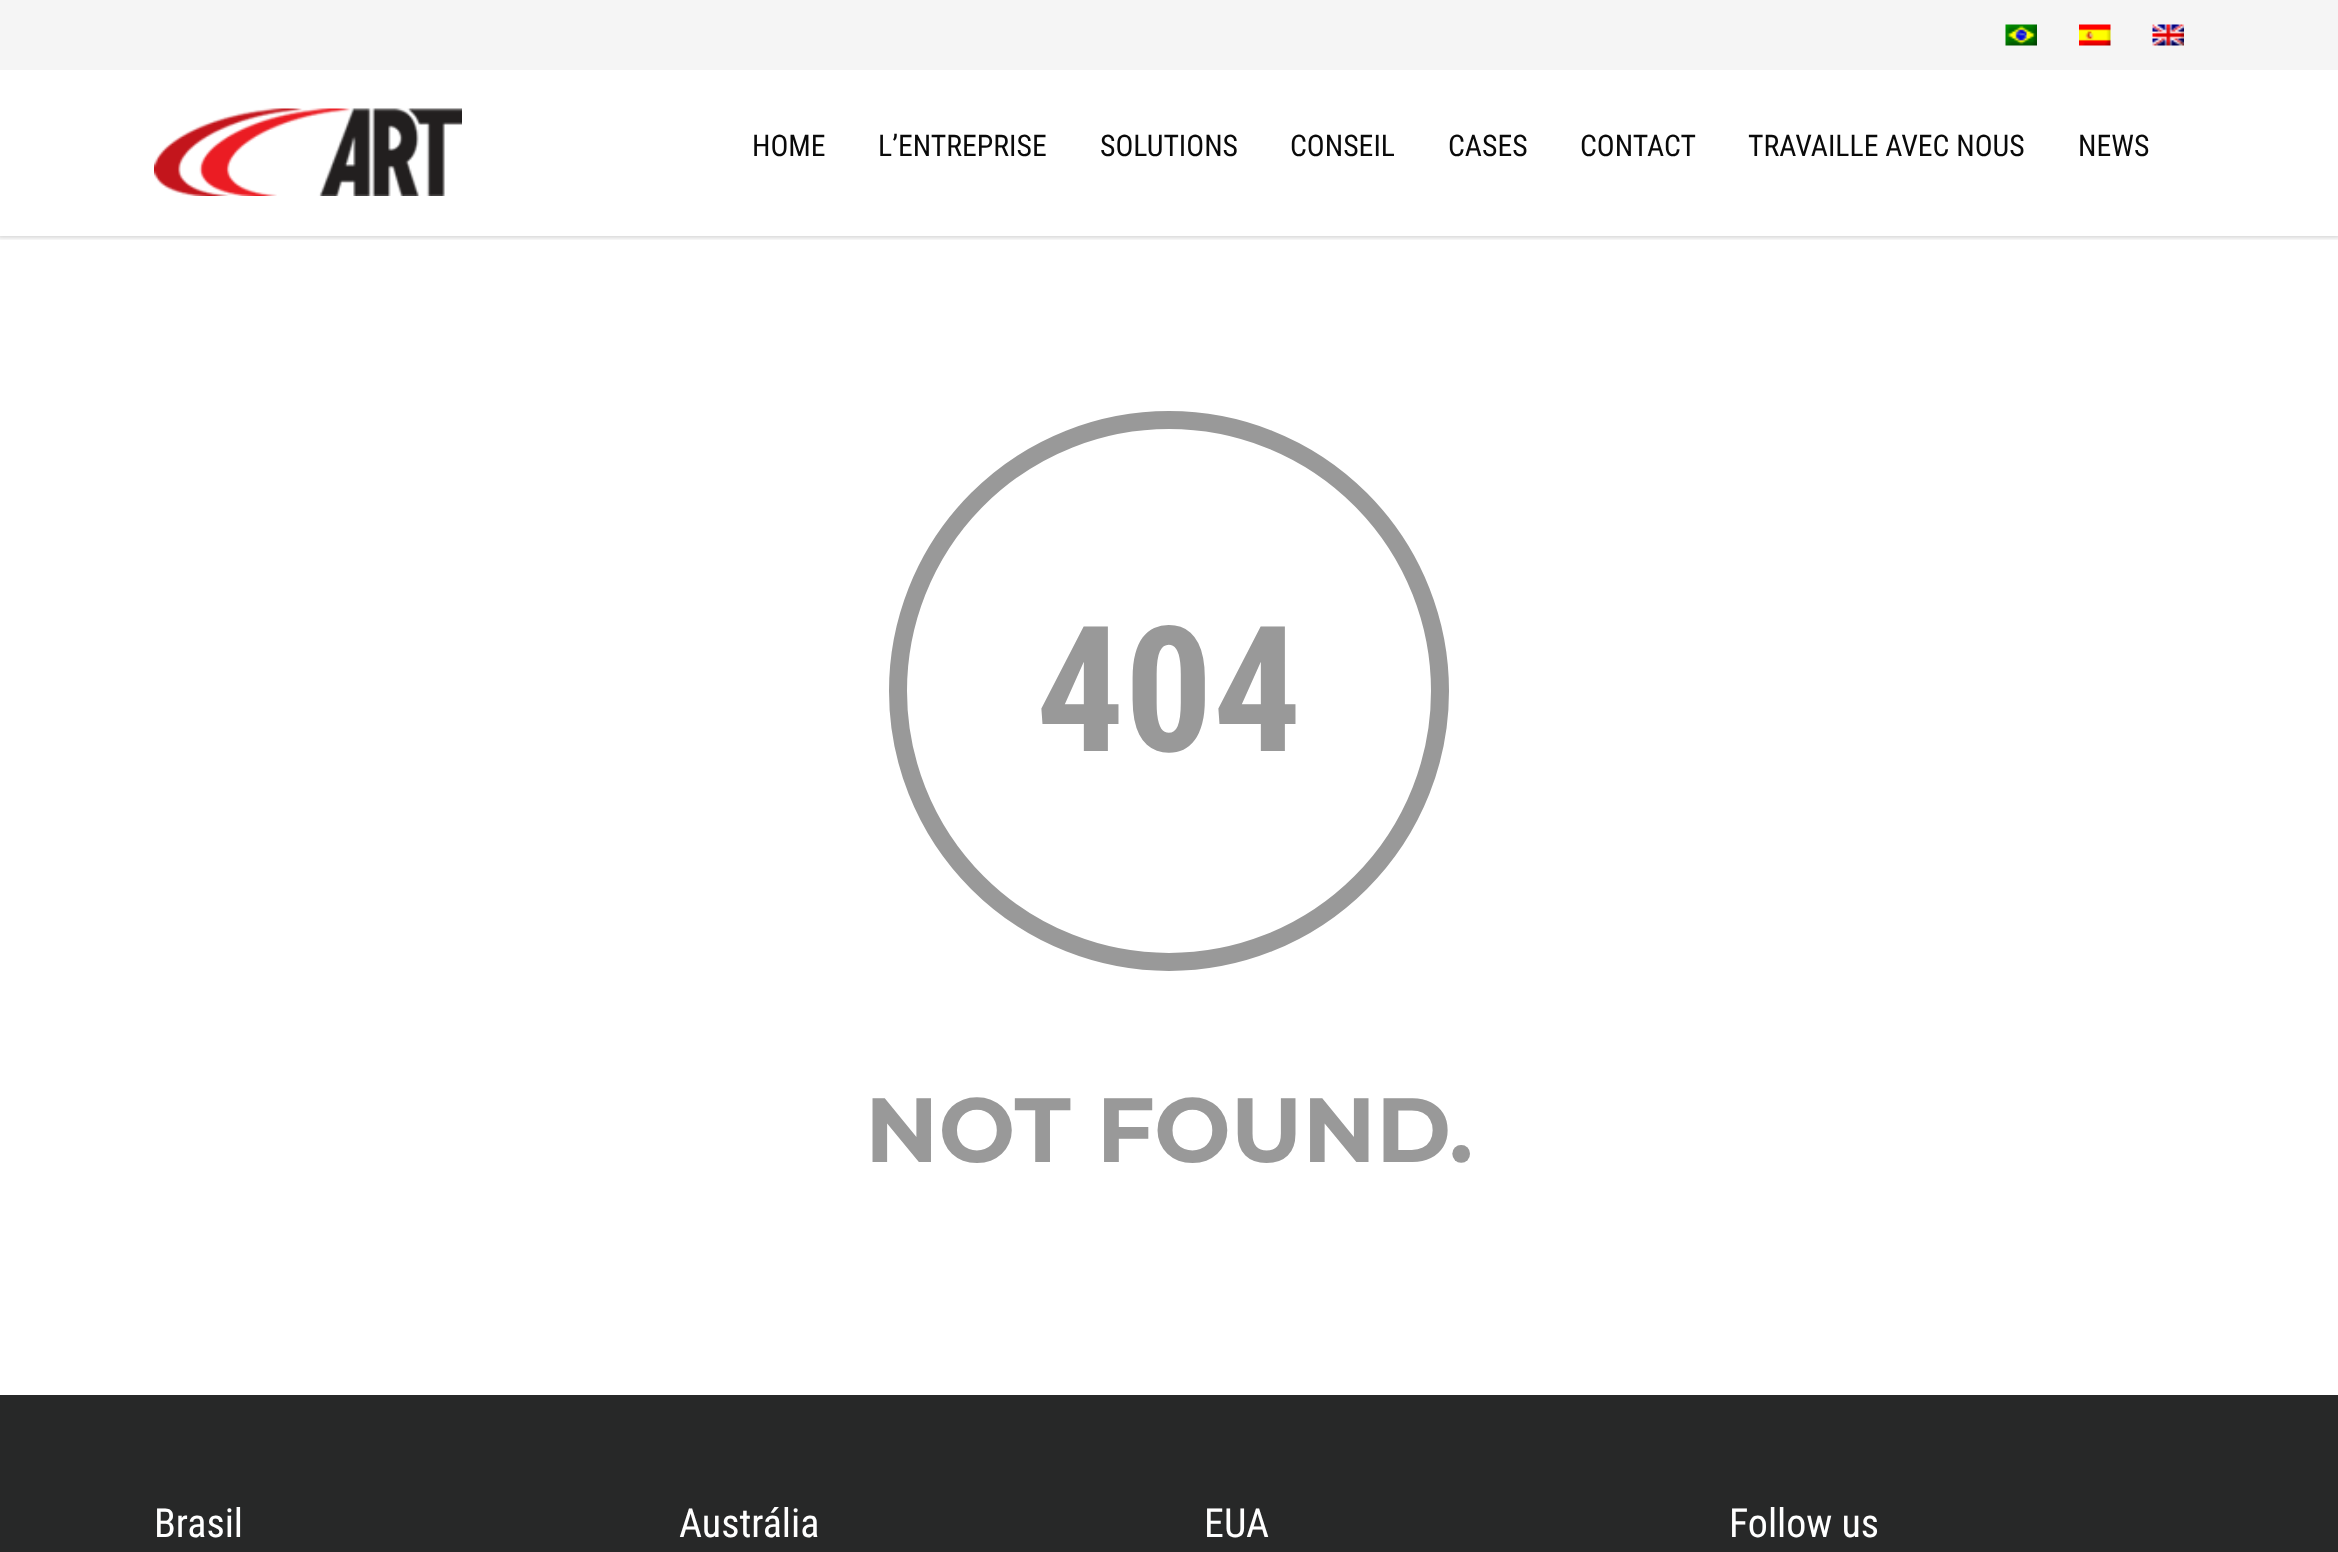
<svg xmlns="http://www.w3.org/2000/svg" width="2338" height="1552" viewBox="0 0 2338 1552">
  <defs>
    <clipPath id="clip1"><rect x="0" y="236" width="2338" height="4"/></clipPath>
  </defs>
  <rect width="100%" height="100%" fill="rgb(255,255,255)"/>
  <g clip-path="url(#clip1)">
    <rect x="-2" y="68" width="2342" height="170" fill="rgba(0,0,0,0.16)" filter="blur(2px)"/>
  </g>
  <rect x="0" y="0" width="2338" height="70" fill="rgb(245,245,245)"/>
  <image x="2005" y="24" width="32" height="22" href="pic1.png"/>
  <image x="2079" y="24" width="32" height="22" href="pic2.png"/>
  <image x="2152" y="24" width="32" height="22" href="pic3.png"/>
  <image x="154" y="108" width="308" height="88" href="pic4.png"/>
  <g font-family="Roboto Condensed" font-size="29.75" fill="rgb(10,10,10)">
    <text x="752" y="156">HOME</text>
    <text x="878" y="156">L’ENTREPRISE</text>
    <text x="1100" y="156">SOLUTIONS</text>
    <text x="1290" y="156">CONSEIL</text>
    <text x="1448" y="156">CASES</text>
    <text x="1580" y="156">CONTACT</text>
    <text x="1748" y="156">TRAVAILLE AVEC NOUS</text>
    <text x="2078" y="156">NEWS</text>
  </g>
  <circle cx="1169" cy="691" r="271" fill="none" stroke="rgb(153,153,153)" stroke-width="18"/>
  <text x="1036" y="751" font-family="Roboto Condensed" font-size="175" font-weight="bold" fill="rgb(153,153,153)">404</text>
  <text x="865" y="1162" font-family="Montserrat" font-size="91" font-weight="bold" fill="rgb(153,153,153)">NOT FOUND.</text>
  <rect x="0" y="1395" width="2338" height="157" fill="rgb(39,40,40)"/>
  <g font-family="Roboto Condensed" font-size="40" fill="rgb(255,255,255)">
    <text x="154" y="1537">Brasil</text>
    <text x="679" y="1537">Austrália</text>
    <text x="1204" y="1537">EUA</text>
    <text x="1729" y="1537">Follow us</text>
  </g>
</svg>
